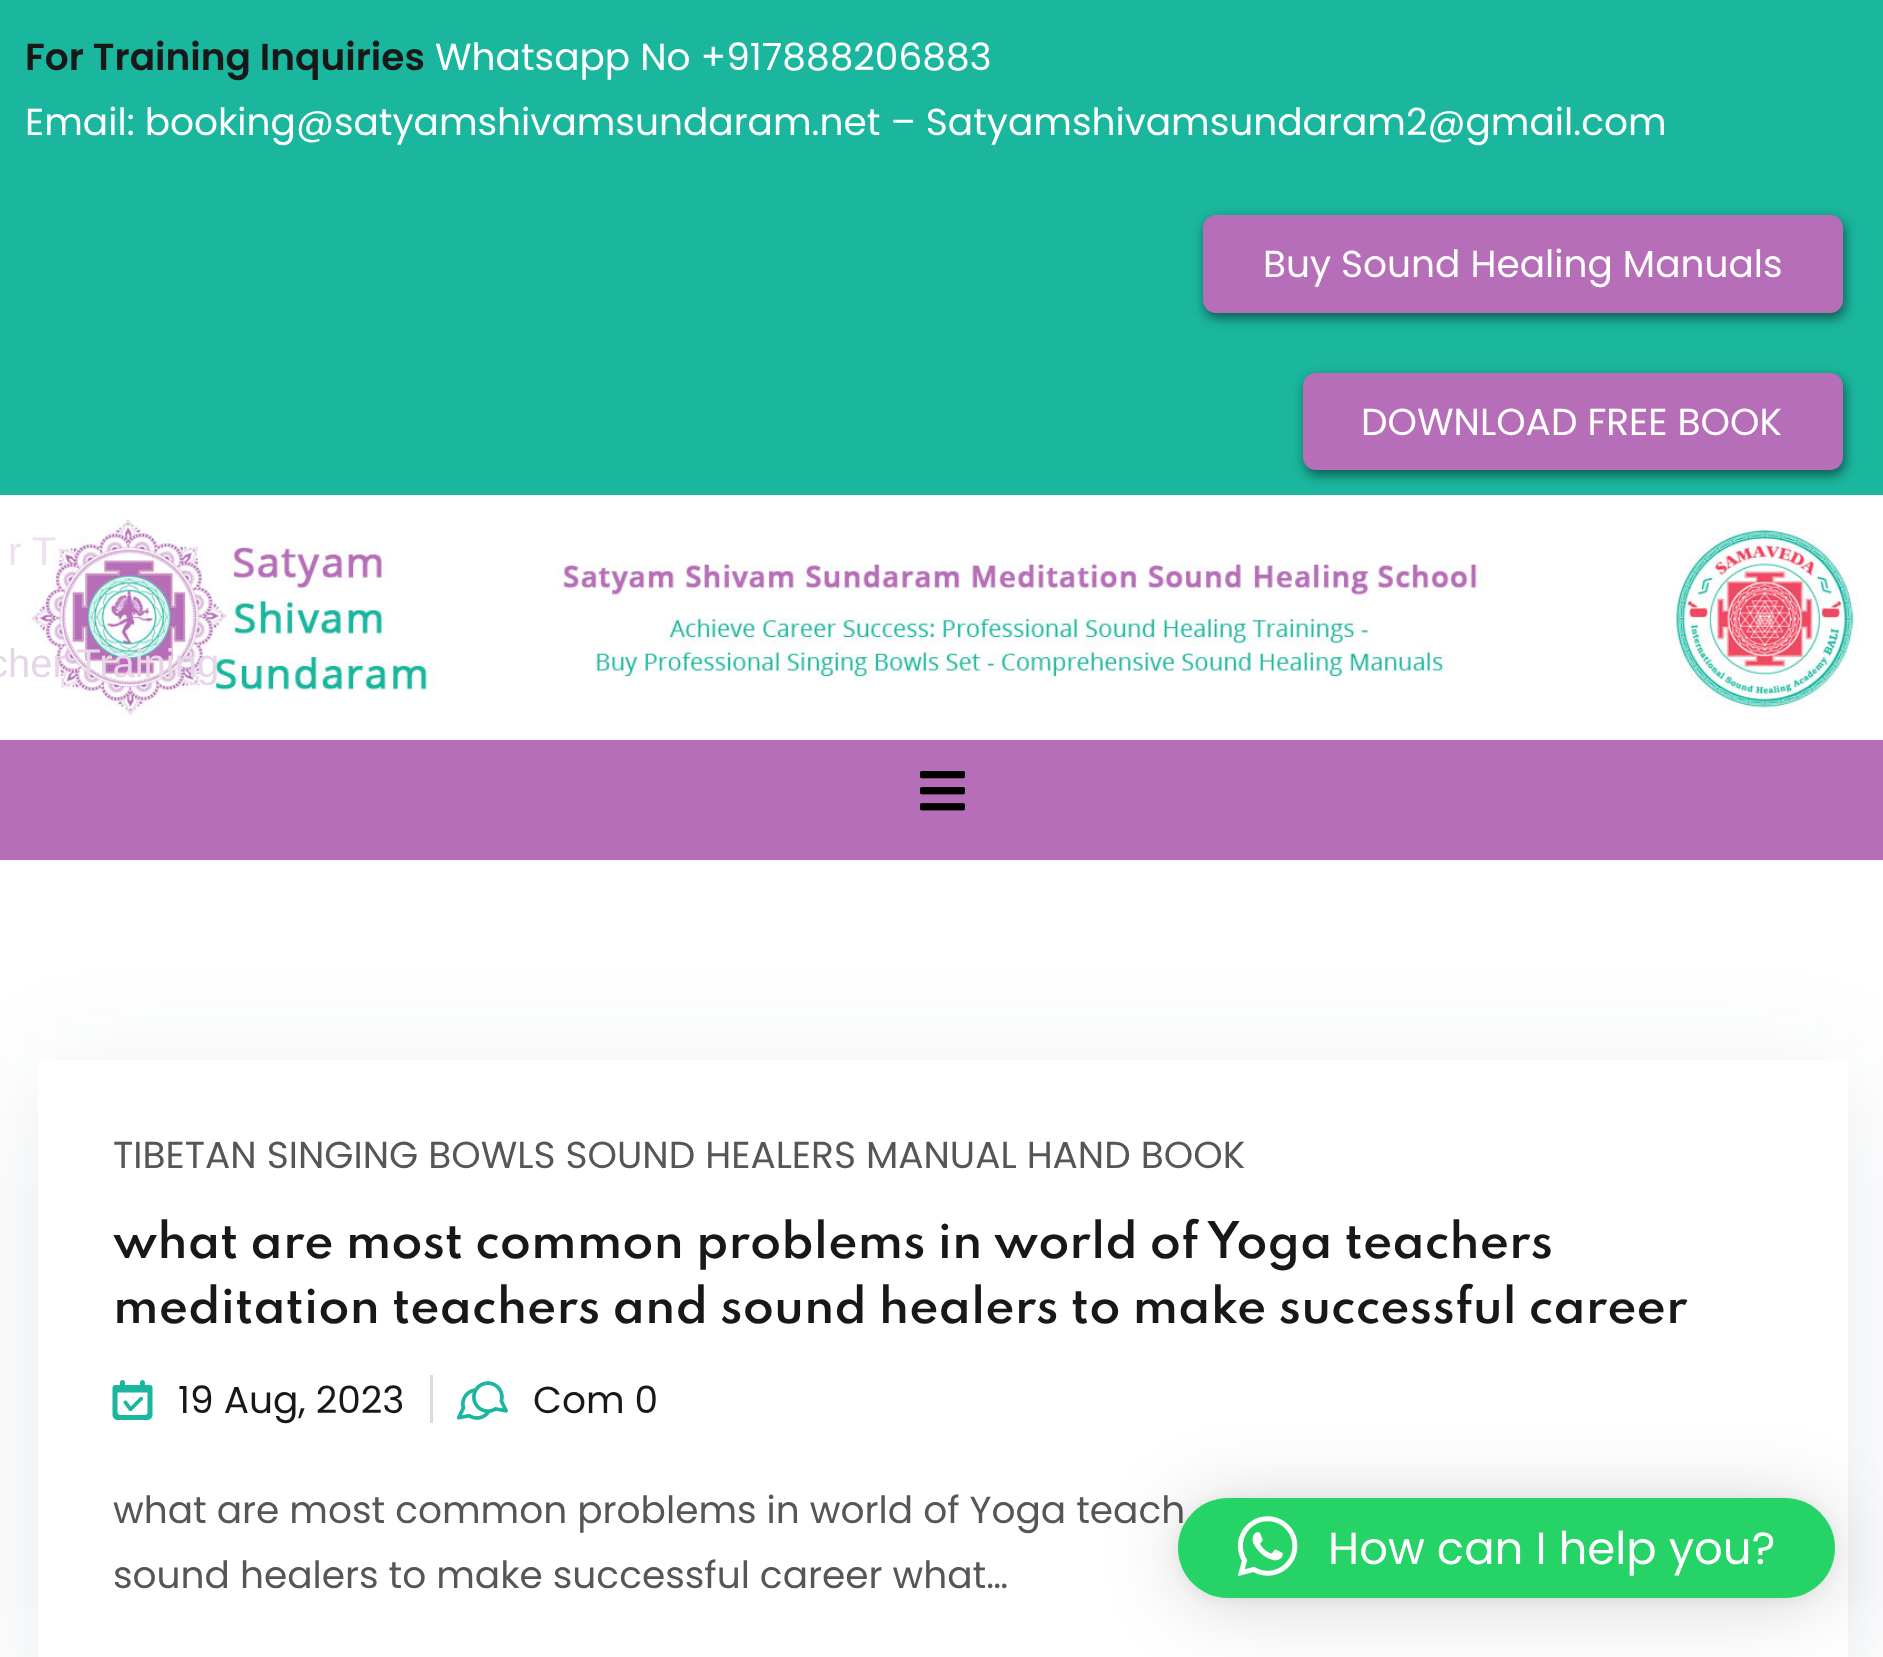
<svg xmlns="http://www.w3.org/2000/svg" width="1883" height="1657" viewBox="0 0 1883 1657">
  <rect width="100%" height="100%" fill="rgb(255,255,255)"/>
  <rect x="0" y="0" width="1883" height="495" fill="rgb(26,182,157)"/>
  <text x="25" y="70" font-family="Poppins" font-size="37.5" font-weight="600" fill="rgb(24,24,24)">For Training Inquiries</text>
  <g font-family="Poppins" font-size="37.5" fill="rgb(255,255,255)">
    <text x="435" y="70">Whatsapp No +917888206883</text>
    <text x="25" y="135">Email: booking@satyamshivamsundaram.net – Satyamshivamsundaram2@gmail.com</text>
  </g>
  <rect x="1205" y="220" width="640" height="98" rx="13" fill="rgba(0,0,0,0.5)" filter="blur(6px)"/>
  <rect x="1203" y="215" width="640" height="98" rx="13" fill="rgb(183,110,184)"/>
  <text x="1263" y="277" font-family="Poppins" font-size="37.5" fill="rgb(255,255,255)">Buy Sound Healing Manuals</text>
  <rect x="1305" y="378" width="540" height="97" rx="13" fill="rgba(0,0,0,0.5)" filter="blur(6px)"/>
  <rect x="1303" y="373" width="540" height="97" rx="13" fill="rgb(183,110,184)"/>
  <text x="1361" y="435" font-family="Poppins" font-size="37.5" fill="rgb(255,255,255)">DOWNLOAD FREE BOOK</text>
  <image x="25" y="520" width="1833" height="195" href="pic1.png"/>
  <rect x="0" y="740" width="1883" height="120" fill="rgb(183,110,184)"/>
  <text x="8" y="565" font-family="Liberation Sans" font-size="40" fill="rgb(239,224,239)">r T</text>
  <text x="-12" y="677" font-family="Liberation Sans" font-size="40" fill="rgb(231,213,232)">cher Training</text>
  <image x="920" y="771" width="45" height="40" href="pic2.png"/>
  <rect x="38" y="1085" width="1810" height="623" rx="25" fill="rgba(26,46,85,0.1)" filter="blur(62.5px)"/>
  <rect x="38" y="1060" width="1810" height="597" fill="rgb(255,255,255)"/>
  <text x="113" y="1168" font-family="Poppins" font-size="37.5" fill="rgb(86,86,86)">TIBETAN SINGING BOWLS SOUND HEALERS MANUAL HAND BOOK</text>
  <g font-family="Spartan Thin" font-size="45" font-weight="600" fill="rgb(24,24,24)">
    <text>
      <tspan x="113" y="1258">what are most common problems in world of Yoga teachers</tspan>
      <tspan x="113" y="1323">meditation teachers and sound healers to make successful career</tspan>
    </text>
  </g>
  <image x="112" y="1380" width="41" height="40" href="pic3.png"/>
  <text x="178" y="1413" font-family="Poppins" font-size="37.5" fill="rgb(24,24,24)">19 Aug, 2023</text>
  <rect x="430" y="1375" width="3" height="48" fill="rgb(219,219,219)"/>
  <image x="456" y="1381" width="52" height="39" href="pic4.png"/>
  <text x="533" y="1413" font-family="Poppins" font-size="37.5" fill="rgb(24,24,24)">Com 0</text>
  <g font-family="Poppins" font-size="37.5" fill="rgb(86,86,86)">
    <text>
      <tspan x="113" y="1523">what are most common problems in world of Yoga teach</tspan>
      <tspan x="113" y="1588">sound healers to make successful career what…</tspan>
    </text>
  </g>
  <rect x="1178" y="1503" width="657" height="100" rx="50" fill="rgba(0,0,0,0.16)" filter="blur(40px)"/>
  <rect x="1178" y="1500" width="657" height="100" rx="50" fill="rgba(0,0,0,0.06)" filter="blur(7.5px)"/>
  <rect x="1178" y="1498" width="657" height="100" rx="50" fill="rgb(37,211,102)"/>
  <image x="1237" y="1516" width="61" height="61" href="pic5.png"/>
  <text x="1328" y="1564" font-family="Poppins" font-size="45" fill="rgb(255,255,255)">How can I help you?</text>
</svg>
